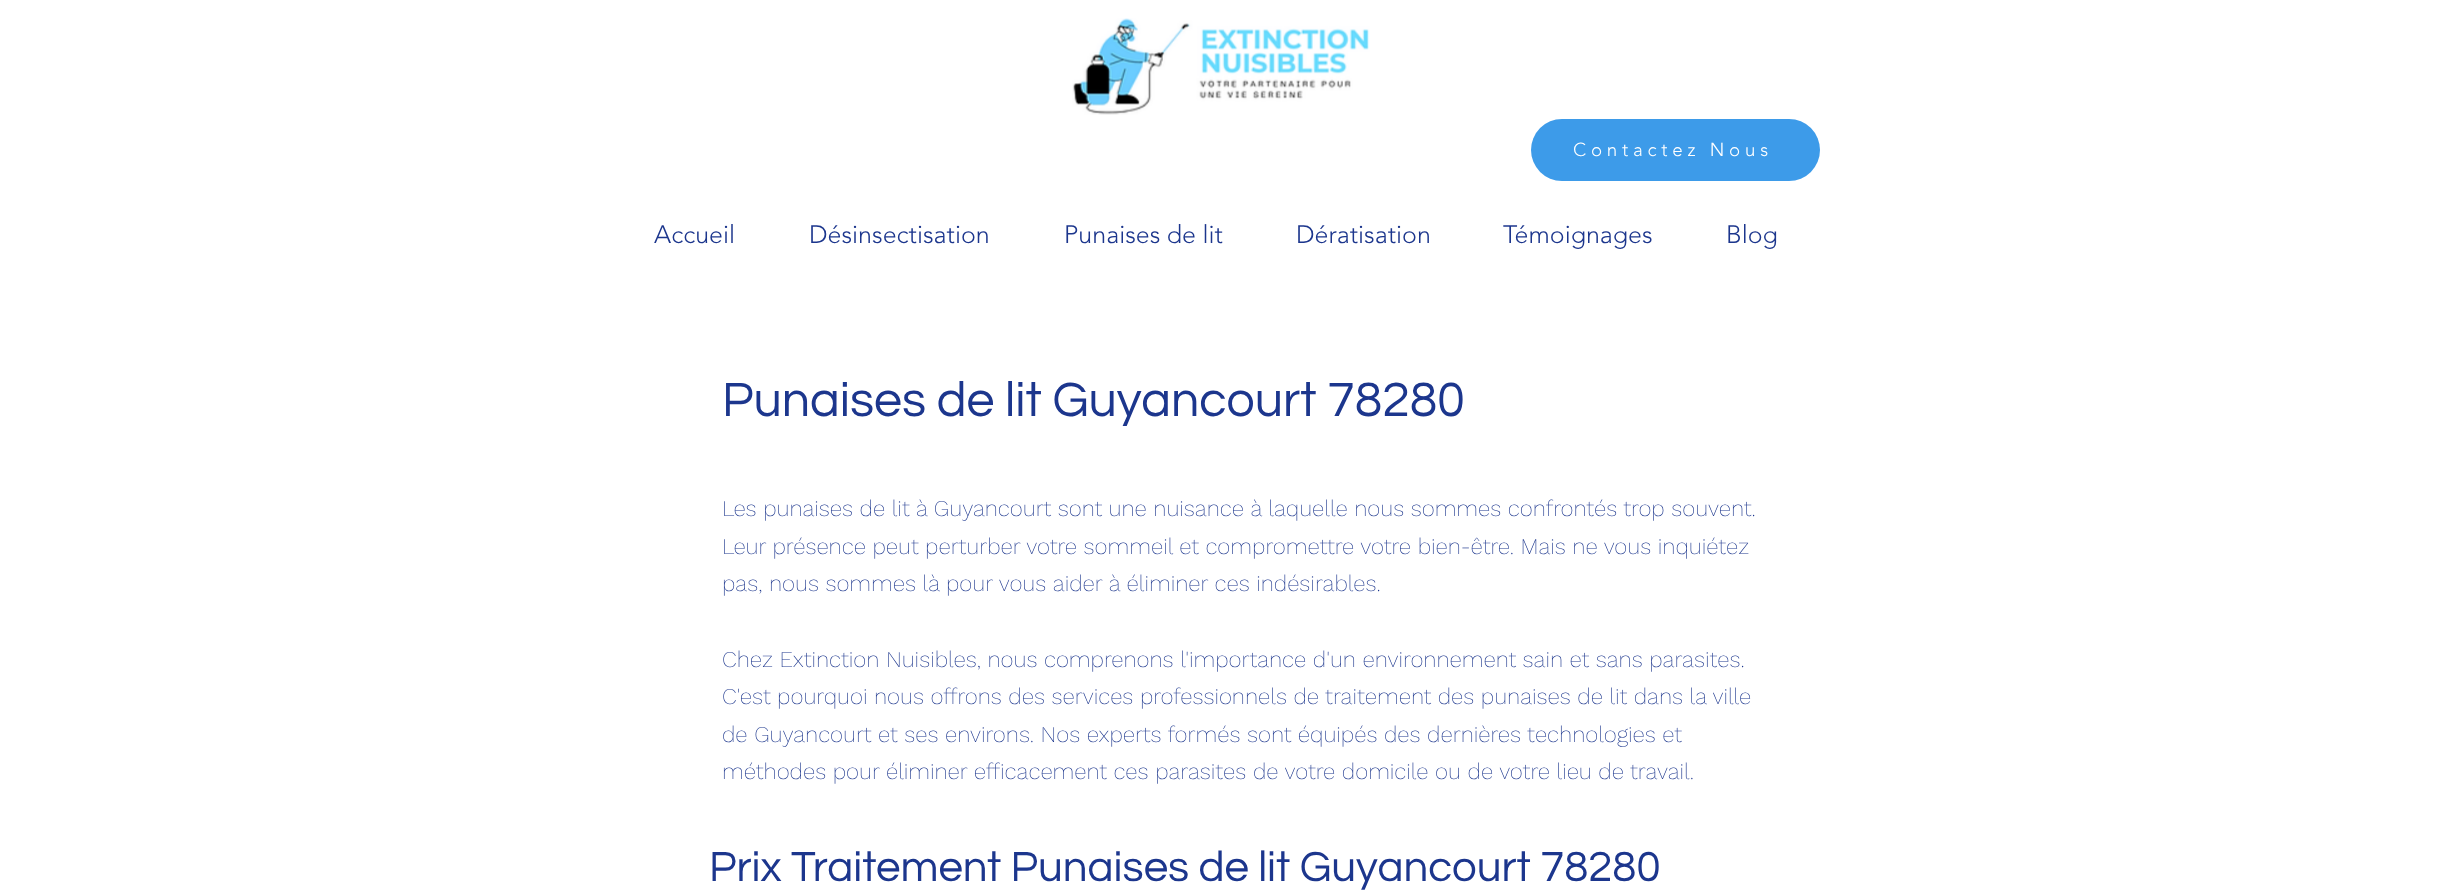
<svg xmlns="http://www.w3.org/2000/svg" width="2443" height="896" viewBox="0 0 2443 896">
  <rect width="100%" height="100%" fill="rgb(255,255,255)"/>
  <image x="1072" y="18" width="298" height="97" href="pic1.png"/>
  <rect x="1531" y="119" width="289" height="62" rx="31" fill="rgb(61,155,233)"/>
  <text x="1573" y="156" font-family="'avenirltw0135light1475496'" font-size="18.75" font-weight="300" letter-spacing="4.75" fill="rgb(255,255,255)">Contactez Nous</text>
  <g font-family="'avenirltw0135light1475496'" font-size="25" font-weight="300" fill="rgb(28,54,141)">
    <text x="654" y="243">Accueil</text>
    <text x="809" y="243">Désinsectisation</text>
    <text x="1064" y="243">Punaises de lit</text>
    <text x="1296" y="243">Dératisation</text>
    <text x="1503" y="243">Témoignages</text>
    <text x="1726" y="243">Blog</text>
  </g>
  <text x="722" y="416" font-family="Questrial" font-size="50" fill="rgb(28,54,141)">Punaises de lit Guyancourt 78280</text>
  <g font-family="Work Sans" font-size="22.5" font-weight="200" fill="rgb(28,54,141)">
    <text>
      <tspan x="722" y="516">Les punaises de lit à Guyancourt sont une nuisance à laquelle nous sommes confrontés trop souvent.</tspan>
      <tspan x="722" y="554">Leur présence peut perturber votre sommeil et compromettre votre bien-être. Mais ne vous inquiétez</tspan>
      <tspan x="722" y="591">pas, nous sommes là pour vous aider à éliminer ces indésirables.</tspan>
    </text>
    <text>
      <tspan x="722" y="667">Chez Extinction Nuisibles, nous comprenons l'importance d'un environnement sain et sans parasites.</tspan>
      <tspan x="722" y="704">C'est pourquoi nous offrons des services professionnels de traitement des punaises de lit dans la ville</tspan>
      <tspan x="722" y="742">de Guyancourt et ses environs. Nos experts formés sont équipés des dernières technologies et</tspan>
      <tspan x="722" y="779">méthodes pour éliminer efficacement ces parasites de votre domicile ou de votre lieu de travail.</tspan>
    </text>
  </g>
  <text x="709" y="881" font-family="Questrial" font-size="43.75" fill="rgb(28,54,141)">Prix Traitement Punaises de lit Guyancourt 78280</text>
</svg>
